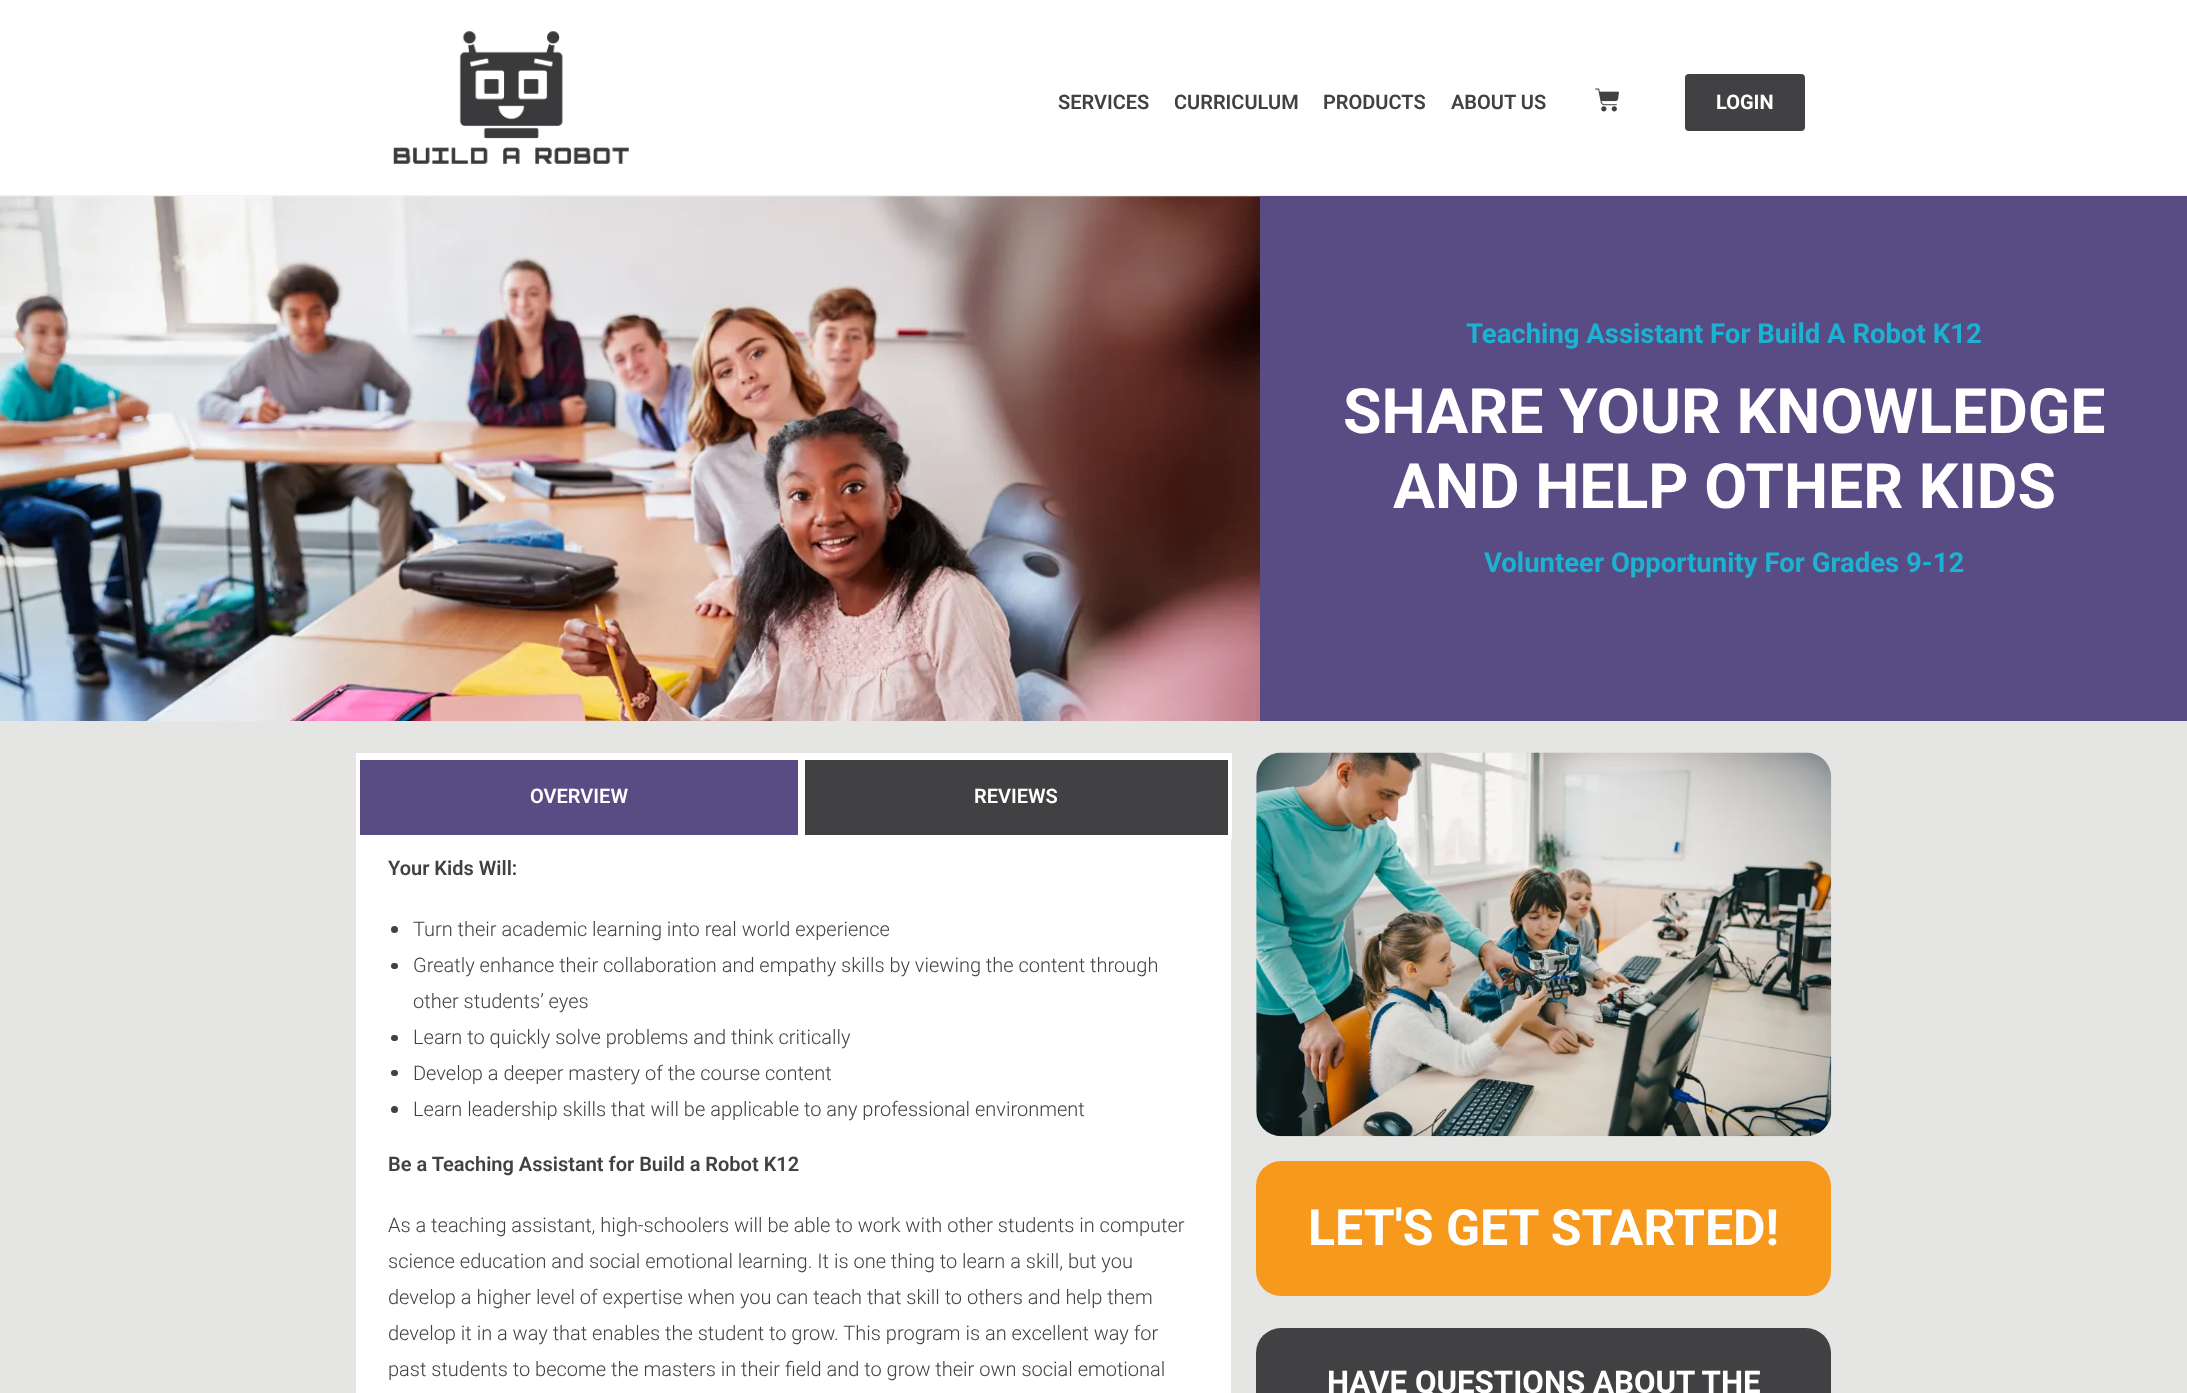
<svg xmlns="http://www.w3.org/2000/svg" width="2187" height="1393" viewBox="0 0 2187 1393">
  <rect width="100%" height="100%" fill="rgb(255,255,255)"/>
  <rect x="0" y="195" width="2187" height="1" fill="rgb(241,241,241)"/>
  <image x="393" y="31" width="236" height="133" href="pic1.png"/>
  <g font-family="Roboto" font-size="20" font-weight="600" fill="rgb(65,64,66)">
    <text x="1058" y="109">SERVICES</text>
    <text x="1174" y="109">CURRICULUM</text>
    <text x="1323" y="109">PRODUCTS</text>
    <text x="1451" y="109">ABOUT US</text>
  </g>
  <image x="1595" y="88" width="24" height="24" href="pic2.png"/>
  <rect x="1685" y="74" width="120" height="57" rx="4" fill="rgb(65,64,66)"/>
  <text x="1716" y="109" font-family="Roboto" font-size="20" font-weight="bold" fill="rgb(255,255,255)">LOGIN</text>
  <image x="0" y="196" width="1260" height="525" href="pic3.png"/>
  <rect x="1260" y="196" width="927" height="525" fill="rgb(89,76,133)"/>
  <text x="1466" y="343" font-family="Roboto" font-size="27.5" font-weight="bold" fill="rgb(27,179,209)">Teaching Assistant For Build A Robot K12</text>
  <g font-family="Roboto" font-size="62.5" font-weight="bold" fill="rgb(255,255,255)">
    <text x="1343" y="433">SHARE YOUR KNOWLEDGE</text>
    <text x="1393" y="508">AND HELP OTHER KIDS</text>
  </g>
  <text x="1484" y="572" font-family="Roboto" font-size="27.5" font-weight="bold" fill="rgb(27,179,209)">Volunteer Opportunity For Grades 9-12</text>
  <rect x="0" y="721" width="2187" height="672" fill="rgb(229,229,228)"/>
  <rect x="360" y="760" width="438" height="75" fill="rgb(89,76,133)"/>
  <rect x="356" y="753" width="875" height="7" fill="rgb(255,255,255)"/>
  <rect x="798" y="753" width="3" height="86" fill="rgb(255,255,255)"/>
  <rect x="356" y="835" width="445" height="4" fill="rgb(255,255,255)"/>
  <rect x="356" y="753" width="4" height="86" fill="rgb(255,255,255)"/>
  <text x="530" y="803" font-family="Roboto" font-size="20" font-weight="600" fill="rgb(255,255,255)">OVERVIEW</text>
  <rect x="805" y="760" width="423" height="75" fill="rgb(65,64,66)"/>
  <rect x="1228" y="753" width="4" height="86" fill="rgb(255,255,255)"/>
  <rect x="801" y="835" width="430" height="4" fill="rgb(255,255,255)"/>
  <rect x="801" y="753" width="4" height="86" fill="rgb(255,255,255)"/>
  <text x="974" y="803" font-family="Roboto" font-size="20" font-weight="600" fill="rgb(255,255,255)">REVIEWS</text>
  <rect x="356" y="839" width="875" height="554" fill="rgb(255,255,255)"/>
  <text x="388" y="875" font-family="Roboto" font-size="20" font-weight="600" fill="rgb(65,64,66)">Your Kids Will:</text>
  <circle cx="394.5" cy="929.5" r="3.5" fill="rgb(65,64,66)"/>
  <text x="413" y="936" font-family="Roboto" font-size="20" font-weight="300" fill="rgb(65,64,66)">Turn their academic learning into real world experience</text>
  <rect x="391" y="963" width="7" height="6" rx="3" fill="rgb(65,64,66)"/>
  <g font-family="Roboto" font-size="20" font-weight="300" fill="rgb(65,64,66)">
    <text>
      <tspan x="413" y="972">Greatly enhance their collaboration and empathy skills by viewing the content through</tspan>
      <tspan x="413" y="1008">other students’ eyes</tspan>
    </text>
  </g>
  <rect x="391" y="1035" width="7" height="6" rx="3" fill="rgb(65,64,66)"/>
  <text x="413" y="1044" font-family="Roboto" font-size="20" font-weight="300" fill="rgb(65,64,66)">Learn to quickly solve problems and think critically</text>
  <rect x="391" y="1070" width="7" height="6" rx="3" fill="rgb(65,64,66)"/>
  <text x="413" y="1080" font-family="Roboto" font-size="20" font-weight="300" fill="rgb(65,64,66)">Develop a deeper mastery of the course content</text>
  <circle cx="394.5" cy="1109.5" r="3.5" fill="rgb(65,64,66)"/>
  <text x="413" y="1116" font-family="Roboto" font-size="20" font-weight="300" fill="rgb(65,64,66)">Learn leadership skills that will be applicable to any professional environment</text>
  <text x="388" y="1171" font-family="Roboto" font-size="20" font-weight="600" fill="rgb(65,64,66)">Be a Teaching Assistant for Build a Robot K12</text>
  <g font-family="Roboto" font-size="20" font-weight="300" fill="rgb(65,64,66)">
    <text>
      <tspan x="388" y="1232">As a teaching assistant, high-schoolers will be able to work with other students in computer</tspan>
      <tspan x="388" y="1268">science education and social emotional learning. It is one thing to learn a skill, but you</tspan>
      <tspan x="388" y="1304">develop a higher level of expertise when you can teach that skill to others and help them</tspan>
      <tspan x="388" y="1340">develop it in a way that enables the student to grow. This program is an excellent way for</tspan>
      <tspan x="388" y="1376">past students to become the masters in their field and to grow their own social emotional</tspan>
    </text>
  </g>
  <image x="1256" y="752" width="576" height="385" href="pic4.png"/>
  <rect x="1256" y="1161" width="575" height="135" rx="25" fill="rgb(247,153,28)"/>
  <text x="1308" y="1245" font-family="Roboto" font-size="50" font-weight="bold" fill="rgb(255,255,255)">LET'S GET STARTED!</text>
  <rect x="1256" y="1328" width="575" height="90" rx="25" fill="rgb(65,64,66)"/>
  <text x="1327" y="1393" font-family="Roboto" font-size="31.25" font-weight="bold" fill="rgb(255,255,255)">HAVE QUESTIONS ABOUT THE</text>
</svg>
